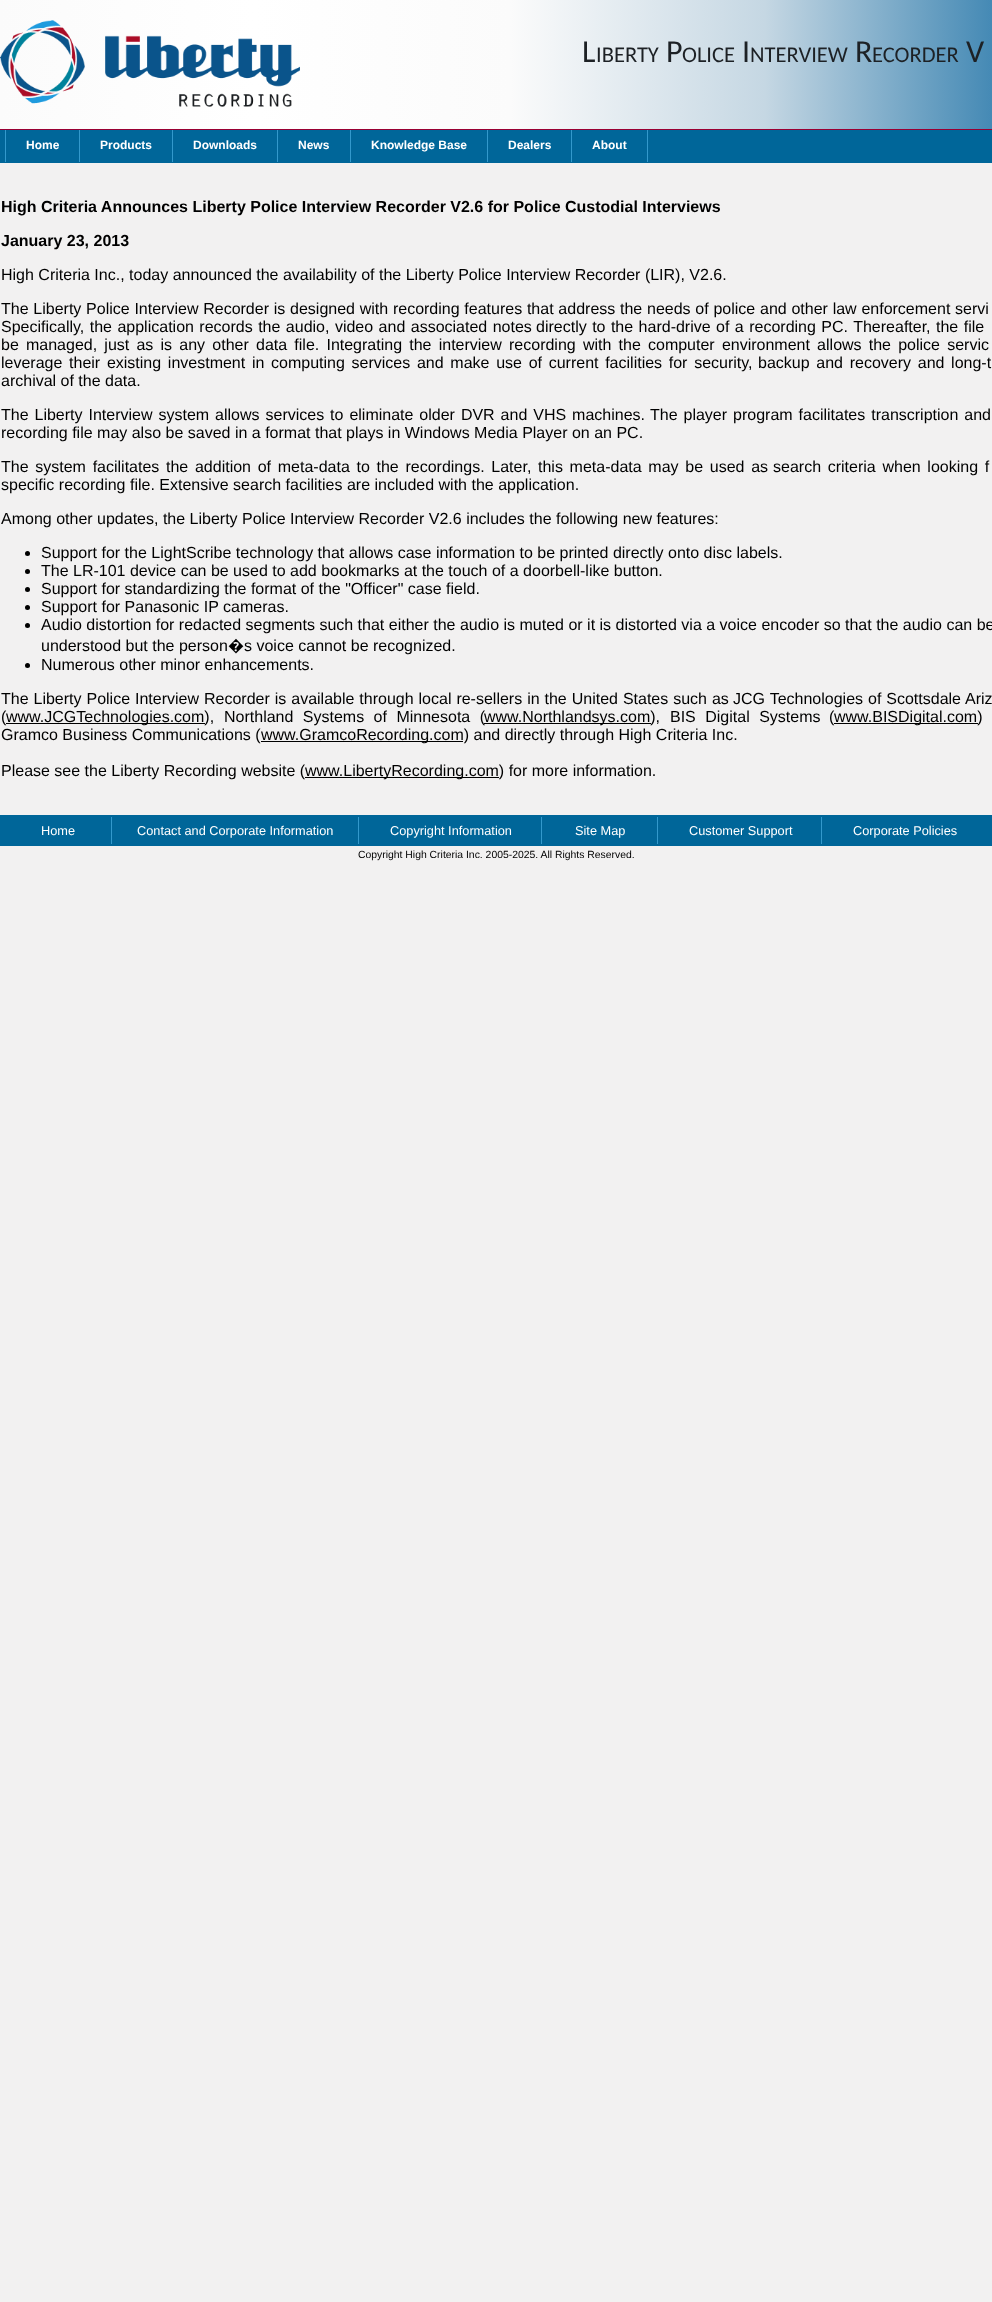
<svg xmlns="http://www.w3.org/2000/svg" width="992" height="2302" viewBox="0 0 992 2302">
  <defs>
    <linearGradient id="g1" gradientUnits="userSpaceOnUse" x1="0" y1="65" x2="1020" y2="64"><stop offset="0" stop-color="rgb(251,251,251)"/><stop offset="0.25" stop-color="rgb(255,255,255)"/><stop offset="0.5" stop-color="rgb(251,251,251)"/><stop offset="0.75" stop-color="rgb(197,215,227)"/><stop offset="1" stop-color="rgb(53,128,175)"/></linearGradient>
  </defs>
  <rect width="100%" height="100%" fill="rgb(242,241,241)"/>
  <rect x="0" y="0" width="992" height="129" fill="url(#g1)"/>
  <image x="0" y="20" width="300" height="87" href="pic1.png"/>
  <text x="582" y="62" font-family="Carlito" font-size="32" fill="rgb(29,33,37)">L</text>
  <text x="596" y="62" font-family="Carlito" font-size="22.5" fill="rgb(29,33,37)">IBERTY</text>
  <text x="666" y="62" font-family="Carlito" font-size="32" fill="rgb(29,33,37)">P</text>
  <text x="682" y="62" font-family="Carlito" font-size="22.5" fill="rgb(29,33,37)">OLICE</text>
  <text x="742" y="62" font-family="Carlito" font-size="32" fill="rgb(29,33,37)">I</text>
  <text x="750" y="62" font-family="Carlito" font-size="22.5" fill="rgb(29,33,37)">NTERVIEW</text>
  <text x="855" y="62" font-family="Carlito" font-size="32" fill="rgb(29,33,37)">R</text>
  <text x="872" y="62" font-family="Carlito" font-size="22.5" fill="rgb(29,33,37)">ECORDER</text>
  <text x="966" y="62" font-family="Carlito" font-size="32" fill="rgb(29,33,37)">V</text>
  <rect x="0" y="129" width="992" height="1" fill="rgb(153,0,51)"/>
  <rect x="0" y="130" width="992" height="33" fill="rgb(0,102,153)"/>
  <rect x="5" y="130" width="1" height="32" fill="rgb(51,153,204)"/>
  <rect x="79" y="130" width="1" height="32" fill="rgb(51,153,204)"/>
  <text x="26" y="149" font-family="Liberation Sans" font-size="12" font-weight="bold" fill="rgb(255,255,255)">Home</text>
  <rect x="172" y="130" width="1" height="32" fill="rgb(51,153,204)"/>
  <text x="100" y="149" font-family="Liberation Sans" font-size="12" font-weight="bold" fill="rgb(255,255,255)">Products</text>
  <rect x="277" y="130" width="1" height="32" fill="rgb(51,153,204)"/>
  <text x="193" y="149" font-family="Liberation Sans" font-size="12" font-weight="bold" fill="rgb(255,255,255)">Downloads</text>
  <rect x="350" y="130" width="1" height="32" fill="rgb(51,153,204)"/>
  <text x="298" y="149" font-family="Liberation Sans" font-size="12" font-weight="bold" fill="rgb(255,255,255)">News</text>
  <rect x="487" y="130" width="1" height="32" fill="rgb(51,153,204)"/>
  <text x="371" y="149" font-family="Liberation Sans" font-size="12" font-weight="bold" fill="rgb(255,255,255)">Knowledge Base</text>
  <rect x="571" y="130" width="1" height="32" fill="rgb(51,153,204)"/>
  <text x="508" y="149" font-family="Liberation Sans" font-size="12" font-weight="bold" fill="rgb(255,255,255)">Dealers</text>
  <rect x="647" y="130" width="1" height="32" fill="rgb(51,153,204)"/>
  <text x="592" y="149" font-family="Liberation Sans" font-size="12" font-weight="bold" fill="rgb(255,255,255)">About</text>
  <g font-family="Liberation Sans" font-size="16" font-weight="bold" fill="rgb(0,0,0)">
    <text x="1" y="212">High Criteria Announces Liberty Police Interview Recorder V2.6 for Police Custodial Interviews</text>
    <text x="1" y="246">January 23, 2013</text>
  </g>
  <g font-family="Liberation Sans" font-size="16" fill="rgb(0,0,0)">
    <text x="1" y="280">High Criteria Inc., today announced the availability of the Liberty Police Interview Recorder (LIR), V2.6.</text>
    <text>
      <tspan x="1" y="314" word-spacing="0.3">The Liberty Police Interview Recorder is designed with recording features that address the needs of police and other law enforcement servi</tspan>
      <tspan x="1" y="332" word-spacing="1">Specifically, the application records the audio, video and associated notes</tspan>
    </text>
    <text x="536" y="332" word-spacing="1">directly to the hard-drive of a recording PC. Thereafter, the file</text>
    <text x="1" y="350" word-spacing="2.75">be managed, just as is any other</text>
    <text x="256" y="350" word-spacing="2.75">data file. Integrating the interview recording with the computer environment allows the police servic</text>
    <text x="1" y="368" word-spacing="2.25">leverage their existing investment in computing services and make use of current facilities for security,</text>
    <text x="758" y="368" word-spacing="2.25">backup and recovery and long-t</text>
    <text x="1" y="386">archival of the data.</text>
    <text x="1" y="420" word-spacing="1.5">The Liberty Interview system allows services to eliminate older DVR and VHS machines.</text>
    <text x="650" y="420" word-spacing="1.5">The player program facilitates transcription and</text>
    <text x="1" y="438">recording file may also be saved in a format that plays in Windows Media Player on an PC.</text>
    <text x="1" y="472" word-spacing="2.25">The system facilitates the addition of meta-data to the recordings. Later, this meta-data may be used as</text>
    <text x="773" y="472" word-spacing="2.25">search criteria when looking f</text>
    <text x="1" y="490">specific recording file. Extensive search facilities are included with the application.</text>
    <text x="1" y="524">Among other updates, the Liberty Police Interview Recorder V2.6 includes the following new features:</text>
  </g>
  <circle cx="27.5" cy="553.5" r="2.5" fill="rgb(0,0,0)"/>
  <text x="41" y="558" font-family="Liberation Sans" font-size="16" fill="rgb(0,0,0)">Support for the LightScribe technology that allows case information to be printed directly onto disc labels.</text>
  <circle cx="27.5" cy="571.5" r="2.5" fill="rgb(0,0,0)"/>
  <text x="41" y="576" font-family="Liberation Sans" font-size="16" fill="rgb(0,0,0)">The LR-101 device can be used to add bookmarks at the touch of a doorbell-like button.</text>
  <circle cx="27.5" cy="589.5" r="2.5" fill="rgb(0,0,0)"/>
  <text x="41" y="594" font-family="Liberation Sans" font-size="16" fill="rgb(0,0,0)">Support for standardizing the format of the "Officer" case field.</text>
  <circle cx="27.5" cy="607.5" r="2.5" fill="rgb(0,0,0)"/>
  <text x="41" y="612" font-family="Liberation Sans" font-size="16" fill="rgb(0,0,0)">Support for Panasonic IP cameras.</text>
  <circle cx="27.5" cy="625.5" r="2.5" fill="rgb(0,0,0)"/>
  <g font-family="Liberation Sans" font-size="16" fill="rgb(0,0,0)">
    <text>
      <tspan x="41" y="630">Audio distortion for redacted segments such that either the audio is muted or it is distorted via a voice encoder so that the audio can be</tspan>
      <tspan x="41" y="651">understood but the person</tspan>
    </text>
  </g>
  <text x="228" y="651" font-family="Noto Sans" font-size="16" fill="rgb(0,0,0)">�</text>
  <text x="244" y="651" font-family="Liberation Sans" font-size="16" fill="rgb(0,0,0)">s voice cannot be recognized.</text>
  <circle cx="27.5" cy="665.5" r="2.5" fill="rgb(0,0,0)"/>
  <g font-family="Liberation Sans" font-size="16" fill="rgb(0,0,0)">
    <text x="41" y="670">Numerous other minor enhancements.</text>
    <text x="1" y="704" word-spacing="0.5">The Liberty Police Interview Recorder is available through local re-sellers in the United States such as</text>
    <text x="733" y="704" word-spacing="0.5">JCG Technologies of Scottsdale Ariz</text>
    <text x="1" y="722">(</text>
  </g>
  <rect x="6" y="723" width="199" height="1" fill="rgb(0,0,0)"/>
  <g font-family="Liberation Sans" font-size="16" fill="rgb(0,0,0)">
    <text x="6" y="722">www.JCGTechnologies.com),</text>
    <text x="224" y="722" word-spacing="5">Northland Systems of Minnesota (</text>
  </g>
  <rect x="484" y="723" width="167" height="1" fill="rgb(0,0,0)"/>
  <g font-family="Liberation Sans" font-size="16" fill="rgb(0,0,0)">
    <text x="484" y="722">www.Northlandsys.com),</text>
    <text x="670" y="722" word-spacing="5">BIS Digital Systems</text>
    <text x="829" y="722">(</text>
  </g>
  <rect x="834" y="723" width="144" height="1" fill="rgb(0,0,0)"/>
  <g font-family="Liberation Sans" font-size="16" fill="rgb(0,0,0)">
    <text x="834" y="722">www.BISDigital.com)</text>
    <text x="1" y="740">Gramco Business Communications (</text>
  </g>
  <rect x="261" y="741" width="202" height="1" fill="rgb(0,0,0)"/>
  <g font-family="Liberation Sans" font-size="16" fill="rgb(0,0,0)">
    <text x="261" y="740">www.GramcoRecording.com) and directly through High Criteria Inc.</text>
    <text x="1" y="776">Please see the Liberty Recording website (</text>
  </g>
  <rect x="305" y="777" width="194" height="1" fill="rgb(0,0,0)"/>
  <text x="305" y="776" font-family="Liberation Sans" font-size="16" fill="rgb(0,0,0)">www.LibertyRecording.com) for more information.</text>
  <rect x="0" y="815" width="992" height="31" fill="rgb(0,102,153)"/>
  <rect x="111" y="817" width="1" height="27" fill="rgb(51,153,204)"/>
  <text x="41" y="835" font-family="Liberation Sans" font-size="12.75" fill="rgb(255,255,255)">Home</text>
  <rect x="358" y="817" width="1" height="27" fill="rgb(51,153,204)"/>
  <text x="137" y="835" font-family="Liberation Sans" font-size="12.75" fill="rgb(255,255,255)">Contact and Corporate Information</text>
  <rect x="541" y="817" width="1" height="27" fill="rgb(51,153,204)"/>
  <text x="390" y="835" font-family="Liberation Sans" font-size="12.75" fill="rgb(255,255,255)">Copyright Information</text>
  <rect x="657" y="817" width="1" height="27" fill="rgb(51,153,204)"/>
  <text x="575" y="835" font-family="Liberation Sans" font-size="12.75" fill="rgb(255,255,255)">Site Map</text>
  <rect x="821" y="817" width="1" height="27" fill="rgb(51,153,204)"/>
  <g font-family="Liberation Sans" font-size="12.75" fill="rgb(255,255,255)">
    <text x="689" y="835">Customer Support</text>
    <text x="853" y="835">Corporate Policies</text>
  </g>
  <text x="358" y="858" font-family="Liberation Sans" font-size="10.4" fill="rgb(0,0,0)">Copyright High Criteria Inc. 2005-2025. All Rights Reserved.</text>
</svg>
